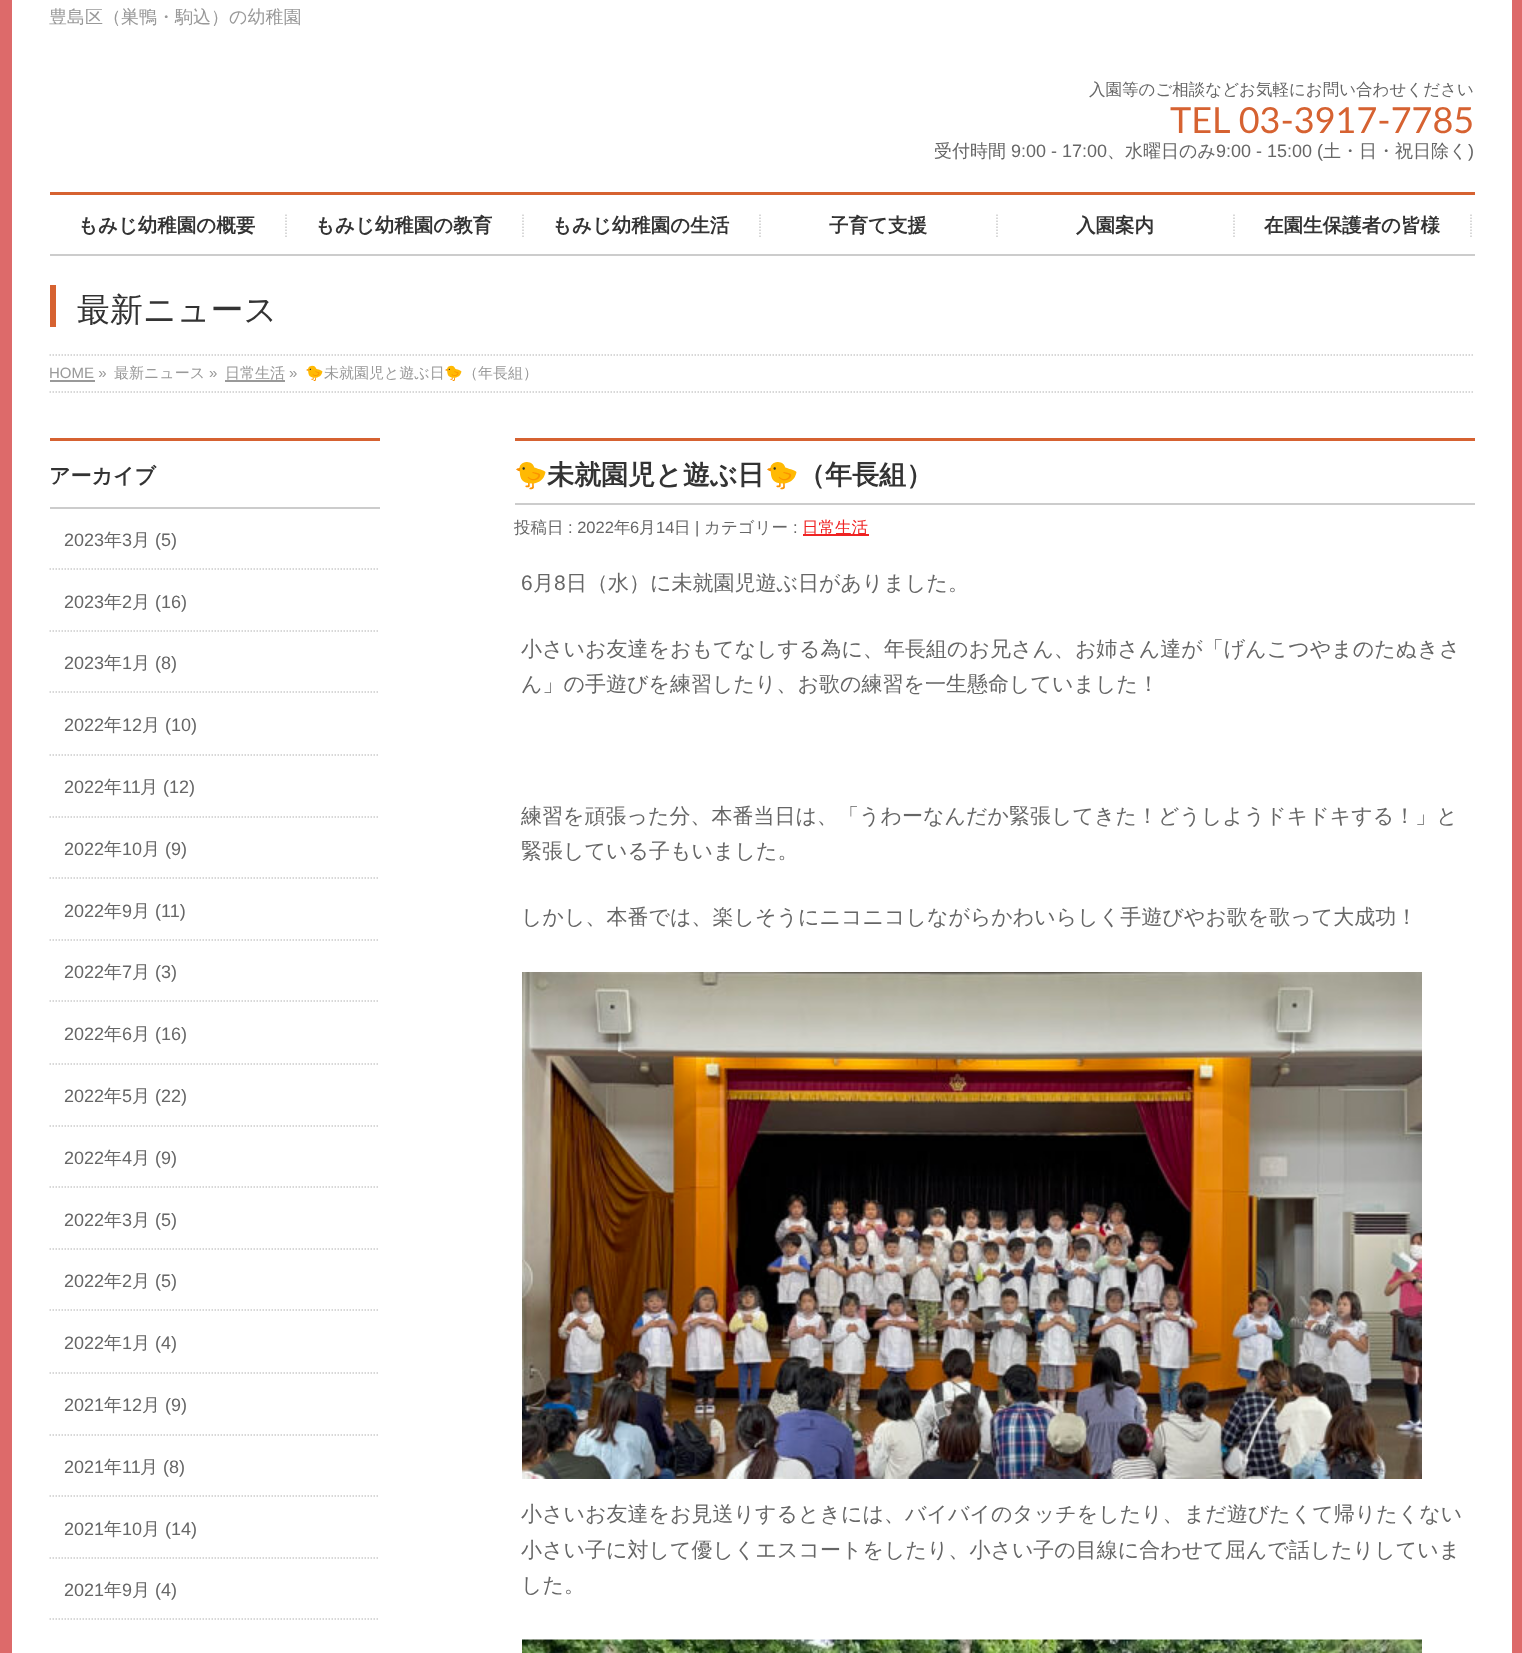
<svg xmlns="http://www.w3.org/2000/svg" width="1522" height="1653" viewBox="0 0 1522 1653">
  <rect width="100%" height="100%" fill="rgb(221,106,106)"/>
  <rect x="12" y="0" width="1500" height="255" fill="rgb(255,255,255)"/>
  <text x="49" y="23" font-family="WenQuanYi Zen Hei" font-size="18" font-weight="500" fill="rgb(153,153,153)">豊島区（巣鴨・駒込）の幼稚園</text>
  <text x="1089" y="95" font-family="WenQuanYi Zen Hei" font-size="16.5" font-weight="500" fill="rgb(102,102,102)">入園等のご相談などお気軽にお問い合わせください</text>
  <text x="1170" y="133" font-family="Lato" font-size="36" fill="rgb(214,98,49)">TEL 03-3917-7785</text>
  <text x="934" y="157" font-family="WenQuanYi Zen Hei" font-size="18" font-weight="500" fill="rgb(102,102,102)">受付時間</text>
  <text x="1011" y="157" font-family="Liberation Sans" font-size="18" fill="rgb(102,102,102)">9:00 - 17:00</text>
  <text x="1107" y="157" font-family="WenQuanYi Zen Hei" font-size="18" font-weight="500" fill="rgb(102,102,102)">、水曜日のみ</text>
  <text x="1216" y="157" font-family="Liberation Sans" font-size="18" fill="rgb(102,102,102)">9:00 - 15:00 (</text>
  <text x="1323" y="157" font-family="WenQuanYi Zen Hei" font-size="18" font-weight="500" fill="rgb(102,102,102)">土・日・祝日除く</text>
  <text x="1468" y="157" font-family="Liberation Sans" font-size="18" fill="rgb(102,102,102)">)</text>
  <rect x="50" y="192" width="1425" height="3" fill="rgb(214,98,49)"/>
  <rect x="12" y="255" width="1500" height="99" fill="rgb(255,255,255)"/>
  <rect x="50" y="254" width="1425" height="2" fill="rgb(204,204,204)"/>
  <path d="M286 214.5V237" fill="none" stroke="rgb(204,204,204)" stroke-width="1.5" stroke-dasharray="1.5 1.5"/>
  <text x="78" y="232" font-family="WenQuanYi Zen Hei" font-size="19.5" font-weight="bold" fill="rgb(51,51,51)">もみじ幼稚園の概要</text>
  <path d="M523 214.5V237" fill="none" stroke="rgb(204,204,204)" stroke-width="1.5" stroke-dasharray="1.5 1.5"/>
  <text x="315" y="232" font-family="WenQuanYi Zen Hei" font-size="19.5" font-weight="bold" fill="rgb(51,51,51)">もみじ幼稚園の教育</text>
  <path d="M760 214.5V237" fill="none" stroke="rgb(204,204,204)" stroke-width="1.5" stroke-dasharray="1.5 1.5"/>
  <text x="552" y="232" font-family="WenQuanYi Zen Hei" font-size="19.5" font-weight="bold" fill="rgb(51,51,51)">もみじ幼稚園の生活</text>
  <path d="M997 214.5V237" fill="none" stroke="rgb(204,204,204)" stroke-width="1.5" stroke-dasharray="1.5 1.5"/>
  <text x="829" y="232" font-family="WenQuanYi Zen Hei" font-size="19.5" font-weight="bold" fill="rgb(51,51,51)">子育て支援</text>
  <path d="M1234 214.5V237" fill="none" stroke="rgb(204,204,204)" stroke-width="1.5" stroke-dasharray="1.5 1.5"/>
  <text x="1076" y="232" font-family="WenQuanYi Zen Hei" font-size="19.5" font-weight="bold" fill="rgb(51,51,51)">入園案内</text>
  <path d="M1471 214.5V237" fill="none" stroke="rgb(204,204,204)" stroke-width="1.5" stroke-dasharray="1.5 1.5"/>
  <text x="1264" y="232" font-family="WenQuanYi Zen Hei" font-size="19.5" font-weight="bold" fill="rgb(51,51,51)">在園生保護者の皆様</text>
  <rect x="50" y="285" width="6" height="42" fill="rgb(214,98,49)"/>
  <text x="77" y="321" font-family="WenQuanYi Zen Hei" font-size="33" font-weight="500" fill="rgb(51,51,51)">最新ニュース</text>
  <rect x="12" y="354" width="1500" height="1299" fill="rgb(255,255,255)"/>
  <path d="M49.5 355H1474.5" fill="none" stroke="rgb(204,204,204)" stroke-width="1.5" stroke-dasharray="1.5 1.5"/>
  <path d="M49.5 392H1474.5" fill="none" stroke="rgb(204,204,204)" stroke-width="1.5" stroke-dasharray="1.5 1.5"/>
  <text x="49" y="378" font-family="Liberation Sans" font-size="15" fill="rgb(153,153,153)">HOME »</text>
  <rect x="50" y="380" width="45" height="2" fill="rgb(153,153,153)"/>
  <text x="114" y="378" font-family="WenQuanYi Zen Hei" font-size="15" font-weight="500" fill="rgb(153,153,153)">最新ニュース</text>
  <text x="209" y="378" font-family="Liberation Sans" font-size="15" fill="rgb(153,153,153)">»</text>
  <text x="225" y="378" font-family="WenQuanYi Zen Hei" font-size="15" font-weight="500" fill="rgb(153,153,153)">日常生活</text>
  <rect x="225" y="380" width="60" height="2" fill="rgb(153,153,153)"/>
  <text x="289" y="378" font-family="Liberation Sans" font-size="15" fill="rgb(153,153,153)">»</text>
  <text x="305" y="378" font-family="Noto Color Emoji" font-size="15" fill="rgb(153,153,153)">🐤</text>
  <text x="324" y="378" font-family="WenQuanYi Zen Hei" font-size="15" font-weight="500" fill="rgb(153,153,153)">未就園児と遊ぶ日</text>
  <text x="444" y="378" font-family="Noto Color Emoji" font-size="15" fill="rgb(153,153,153)">🐤</text>
  <text x="463" y="378" font-family="WenQuanYi Zen Hei" font-size="15" font-weight="500" fill="rgb(153,153,153)">（年長組）</text>
  <rect x="50" y="438" width="330" height="3" fill="rgb(214,98,49)"/>
  <rect x="50" y="507" width="330" height="2" fill="rgb(204,204,204)"/>
  <text x="49" y="483" font-family="WenQuanYi Zen Hei" font-size="21" font-weight="bold" fill="rgb(51,51,51)">アーカイブ</text>
  <path d="M49.5 569H379.5" fill="none" stroke="rgb(204,204,204)" stroke-width="1.5" stroke-dasharray="1.5 1.5"/>
  <text x="64" y="546" font-family="Liberation Sans" font-size="18" fill="rgb(102,102,102)">2023</text>
  <text x="104" y="546" font-family="WenQuanYi Zen Hei" font-size="18" font-weight="500" fill="rgb(102,102,102)">年</text>
  <text x="122" y="546" font-family="Liberation Sans" font-size="18" fill="rgb(102,102,102)">3</text>
  <text x="132" y="546" font-family="WenQuanYi Zen Hei" font-size="18" font-weight="500" fill="rgb(102,102,102)">月</text>
  <text x="155" y="546" font-family="Liberation Sans" font-size="18" fill="rgb(102,102,102)">(5)</text>
  <path d="M49.5 631H379.5" fill="none" stroke="rgb(204,204,204)" stroke-width="1.5" stroke-dasharray="1.5 1.5"/>
  <text x="64" y="608" font-family="Liberation Sans" font-size="18" fill="rgb(102,102,102)">2023</text>
  <text x="104" y="608" font-family="WenQuanYi Zen Hei" font-size="18" font-weight="500" fill="rgb(102,102,102)">年</text>
  <text x="122" y="608" font-family="Liberation Sans" font-size="18" fill="rgb(102,102,102)">2</text>
  <text x="132" y="608" font-family="WenQuanYi Zen Hei" font-size="18" font-weight="500" fill="rgb(102,102,102)">月</text>
  <text x="155" y="608" font-family="Liberation Sans" font-size="18" fill="rgb(102,102,102)">(16)</text>
  <path d="M49.5 692H379.5" fill="none" stroke="rgb(204,204,204)" stroke-width="1.5" stroke-dasharray="1.5 1.5"/>
  <text x="64" y="669" font-family="Liberation Sans" font-size="18" fill="rgb(102,102,102)">2023</text>
  <text x="104" y="669" font-family="WenQuanYi Zen Hei" font-size="18" font-weight="500" fill="rgb(102,102,102)">年</text>
  <text x="122" y="669" font-family="Liberation Sans" font-size="18" fill="rgb(102,102,102)">1</text>
  <text x="132" y="669" font-family="WenQuanYi Zen Hei" font-size="18" font-weight="500" fill="rgb(102,102,102)">月</text>
  <text x="155" y="669" font-family="Liberation Sans" font-size="18" fill="rgb(102,102,102)">(8)</text>
  <path d="M49.5 755H379.5" fill="none" stroke="rgb(204,204,204)" stroke-width="1.5" stroke-dasharray="1.5 1.5"/>
  <text x="64" y="731" font-family="Liberation Sans" font-size="18" fill="rgb(102,102,102)">2022</text>
  <text x="104" y="731" font-family="WenQuanYi Zen Hei" font-size="18" font-weight="500" fill="rgb(102,102,102)">年</text>
  <text x="122" y="731" font-family="Liberation Sans" font-size="18" fill="rgb(102,102,102)">12</text>
  <text x="142" y="731" font-family="WenQuanYi Zen Hei" font-size="18" font-weight="500" fill="rgb(102,102,102)">月</text>
  <text x="165" y="731" font-family="Liberation Sans" font-size="18" fill="rgb(102,102,102)">(10)</text>
  <path d="M49.5 817H379.5" fill="none" stroke="rgb(204,204,204)" stroke-width="1.5" stroke-dasharray="1.5 1.5"/>
  <text x="64" y="793" font-family="Liberation Sans" font-size="18" fill="rgb(102,102,102)">2022</text>
  <text x="104" y="793" font-family="WenQuanYi Zen Hei" font-size="18" font-weight="500" fill="rgb(102,102,102)">年</text>
  <text x="122" y="793" font-family="Liberation Sans" font-size="18" fill="rgb(102,102,102)">11</text>
  <text x="140" y="793" font-family="WenQuanYi Zen Hei" font-size="18" font-weight="500" fill="rgb(102,102,102)">月</text>
  <text x="163" y="793" font-family="Liberation Sans" font-size="18" fill="rgb(102,102,102)">(12)</text>
  <path d="M49.5 878H379.5" fill="none" stroke="rgb(204,204,204)" stroke-width="1.5" stroke-dasharray="1.5 1.5"/>
  <text x="64" y="855" font-family="Liberation Sans" font-size="18" fill="rgb(102,102,102)">2022</text>
  <text x="104" y="855" font-family="WenQuanYi Zen Hei" font-size="18" font-weight="500" fill="rgb(102,102,102)">年</text>
  <text x="122" y="855" font-family="Liberation Sans" font-size="18" fill="rgb(102,102,102)">10</text>
  <text x="142" y="855" font-family="WenQuanYi Zen Hei" font-size="18" font-weight="500" fill="rgb(102,102,102)">月</text>
  <text x="165" y="855" font-family="Liberation Sans" font-size="18" fill="rgb(102,102,102)">(9)</text>
  <path d="M49.5 940H379.5" fill="none" stroke="rgb(204,204,204)" stroke-width="1.5" stroke-dasharray="1.5 1.5"/>
  <text x="64" y="917" font-family="Liberation Sans" font-size="18" fill="rgb(102,102,102)">2022</text>
  <text x="104" y="917" font-family="WenQuanYi Zen Hei" font-size="18" font-weight="500" fill="rgb(102,102,102)">年</text>
  <text x="122" y="917" font-family="Liberation Sans" font-size="18" fill="rgb(102,102,102)">9</text>
  <text x="132" y="917" font-family="WenQuanYi Zen Hei" font-size="18" font-weight="500" fill="rgb(102,102,102)">月</text>
  <text x="155" y="917" font-family="Liberation Sans" font-size="18" fill="rgb(102,102,102)">(11)</text>
  <path d="M49.5 1001H379.5" fill="none" stroke="rgb(204,204,204)" stroke-width="1.5" stroke-dasharray="1.5 1.5"/>
  <text x="64" y="978" font-family="Liberation Sans" font-size="18" fill="rgb(102,102,102)">2022</text>
  <text x="104" y="978" font-family="WenQuanYi Zen Hei" font-size="18" font-weight="500" fill="rgb(102,102,102)">年</text>
  <text x="122" y="978" font-family="Liberation Sans" font-size="18" fill="rgb(102,102,102)">7</text>
  <text x="132" y="978" font-family="WenQuanYi Zen Hei" font-size="18" font-weight="500" fill="rgb(102,102,102)">月</text>
  <text x="155" y="978" font-family="Liberation Sans" font-size="18" fill="rgb(102,102,102)">(3)</text>
  <path d="M49.5 1064H379.5" fill="none" stroke="rgb(204,204,204)" stroke-width="1.5" stroke-dasharray="1.5 1.5"/>
  <text x="64" y="1040" font-family="Liberation Sans" font-size="18" fill="rgb(102,102,102)">2022</text>
  <text x="104" y="1040" font-family="WenQuanYi Zen Hei" font-size="18" font-weight="500" fill="rgb(102,102,102)">年</text>
  <text x="122" y="1040" font-family="Liberation Sans" font-size="18" fill="rgb(102,102,102)">6</text>
  <text x="132" y="1040" font-family="WenQuanYi Zen Hei" font-size="18" font-weight="500" fill="rgb(102,102,102)">月</text>
  <text x="155" y="1040" font-family="Liberation Sans" font-size="18" fill="rgb(102,102,102)">(16)</text>
  <path d="M49.5 1126H379.5" fill="none" stroke="rgb(204,204,204)" stroke-width="1.5" stroke-dasharray="1.5 1.5"/>
  <text x="64" y="1102" font-family="Liberation Sans" font-size="18" fill="rgb(102,102,102)">2022</text>
  <text x="104" y="1102" font-family="WenQuanYi Zen Hei" font-size="18" font-weight="500" fill="rgb(102,102,102)">年</text>
  <text x="122" y="1102" font-family="Liberation Sans" font-size="18" fill="rgb(102,102,102)">5</text>
  <text x="132" y="1102" font-family="WenQuanYi Zen Hei" font-size="18" font-weight="500" fill="rgb(102,102,102)">月</text>
  <text x="155" y="1102" font-family="Liberation Sans" font-size="18" fill="rgb(102,102,102)">(22)</text>
  <path d="M49.5 1187H379.5" fill="none" stroke="rgb(204,204,204)" stroke-width="1.5" stroke-dasharray="1.5 1.5"/>
  <text x="64" y="1164" font-family="Liberation Sans" font-size="18" fill="rgb(102,102,102)">2022</text>
  <text x="104" y="1164" font-family="WenQuanYi Zen Hei" font-size="18" font-weight="500" fill="rgb(102,102,102)">年</text>
  <text x="122" y="1164" font-family="Liberation Sans" font-size="18" fill="rgb(102,102,102)">4</text>
  <text x="132" y="1164" font-family="WenQuanYi Zen Hei" font-size="18" font-weight="500" fill="rgb(102,102,102)">月</text>
  <text x="155" y="1164" font-family="Liberation Sans" font-size="18" fill="rgb(102,102,102)">(9)</text>
  <path d="M49.5 1249H379.5" fill="none" stroke="rgb(204,204,204)" stroke-width="1.5" stroke-dasharray="1.5 1.5"/>
  <text x="64" y="1226" font-family="Liberation Sans" font-size="18" fill="rgb(102,102,102)">2022</text>
  <text x="104" y="1226" font-family="WenQuanYi Zen Hei" font-size="18" font-weight="500" fill="rgb(102,102,102)">年</text>
  <text x="122" y="1226" font-family="Liberation Sans" font-size="18" fill="rgb(102,102,102)">3</text>
  <text x="132" y="1226" font-family="WenQuanYi Zen Hei" font-size="18" font-weight="500" fill="rgb(102,102,102)">月</text>
  <text x="155" y="1226" font-family="Liberation Sans" font-size="18" fill="rgb(102,102,102)">(5)</text>
  <path d="M49.5 1310H379.5" fill="none" stroke="rgb(204,204,204)" stroke-width="1.5" stroke-dasharray="1.5 1.5"/>
  <text x="64" y="1287" font-family="Liberation Sans" font-size="18" fill="rgb(102,102,102)">2022</text>
  <text x="104" y="1287" font-family="WenQuanYi Zen Hei" font-size="18" font-weight="500" fill="rgb(102,102,102)">年</text>
  <text x="122" y="1287" font-family="Liberation Sans" font-size="18" fill="rgb(102,102,102)">2</text>
  <text x="132" y="1287" font-family="WenQuanYi Zen Hei" font-size="18" font-weight="500" fill="rgb(102,102,102)">月</text>
  <text x="155" y="1287" font-family="Liberation Sans" font-size="18" fill="rgb(102,102,102)">(5)</text>
  <path d="M49.5 1373H379.5" fill="none" stroke="rgb(204,204,204)" stroke-width="1.5" stroke-dasharray="1.5 1.5"/>
  <text x="64" y="1349" font-family="Liberation Sans" font-size="18" fill="rgb(102,102,102)">2022</text>
  <text x="104" y="1349" font-family="WenQuanYi Zen Hei" font-size="18" font-weight="500" fill="rgb(102,102,102)">年</text>
  <text x="122" y="1349" font-family="Liberation Sans" font-size="18" fill="rgb(102,102,102)">1</text>
  <text x="132" y="1349" font-family="WenQuanYi Zen Hei" font-size="18" font-weight="500" fill="rgb(102,102,102)">月</text>
  <text x="155" y="1349" font-family="Liberation Sans" font-size="18" fill="rgb(102,102,102)">(4)</text>
  <path d="M49.5 1435H379.5" fill="none" stroke="rgb(204,204,204)" stroke-width="1.5" stroke-dasharray="1.5 1.5"/>
  <text x="64" y="1411" font-family="Liberation Sans" font-size="18" fill="rgb(102,102,102)">2021</text>
  <text x="104" y="1411" font-family="WenQuanYi Zen Hei" font-size="18" font-weight="500" fill="rgb(102,102,102)">年</text>
  <text x="122" y="1411" font-family="Liberation Sans" font-size="18" fill="rgb(102,102,102)">12</text>
  <text x="142" y="1411" font-family="WenQuanYi Zen Hei" font-size="18" font-weight="500" fill="rgb(102,102,102)">月</text>
  <text x="165" y="1411" font-family="Liberation Sans" font-size="18" fill="rgb(102,102,102)">(9)</text>
  <path d="M49.5 1496H379.5" fill="none" stroke="rgb(204,204,204)" stroke-width="1.5" stroke-dasharray="1.5 1.5"/>
  <text x="64" y="1473" font-family="Liberation Sans" font-size="18" fill="rgb(102,102,102)">2021</text>
  <text x="104" y="1473" font-family="WenQuanYi Zen Hei" font-size="18" font-weight="500" fill="rgb(102,102,102)">年</text>
  <text x="122" y="1473" font-family="Liberation Sans" font-size="18" fill="rgb(102,102,102)">11</text>
  <text x="140" y="1473" font-family="WenQuanYi Zen Hei" font-size="18" font-weight="500" fill="rgb(102,102,102)">月</text>
  <text x="163" y="1473" font-family="Liberation Sans" font-size="18" fill="rgb(102,102,102)">(8)</text>
  <path d="M49.5 1558H379.5" fill="none" stroke="rgb(204,204,204)" stroke-width="1.5" stroke-dasharray="1.5 1.5"/>
  <text x="64" y="1535" font-family="Liberation Sans" font-size="18" fill="rgb(102,102,102)">2021</text>
  <text x="104" y="1535" font-family="WenQuanYi Zen Hei" font-size="18" font-weight="500" fill="rgb(102,102,102)">年</text>
  <text x="122" y="1535" font-family="Liberation Sans" font-size="18" fill="rgb(102,102,102)">10</text>
  <text x="142" y="1535" font-family="WenQuanYi Zen Hei" font-size="18" font-weight="500" fill="rgb(102,102,102)">月</text>
  <text x="165" y="1535" font-family="Liberation Sans" font-size="18" fill="rgb(102,102,102)">(14)</text>
  <path d="M49.5 1619H379.5" fill="none" stroke="rgb(204,204,204)" stroke-width="1.5" stroke-dasharray="1.5 1.5"/>
  <text x="64" y="1596" font-family="Liberation Sans" font-size="18" fill="rgb(102,102,102)">2021</text>
  <text x="104" y="1596" font-family="WenQuanYi Zen Hei" font-size="18" font-weight="500" fill="rgb(102,102,102)">年</text>
  <text x="122" y="1596" font-family="Liberation Sans" font-size="18" fill="rgb(102,102,102)">9</text>
  <text x="132" y="1596" font-family="WenQuanYi Zen Hei" font-size="18" font-weight="500" fill="rgb(102,102,102)">月</text>
  <text x="155" y="1596" font-family="Liberation Sans" font-size="18" fill="rgb(102,102,102)">(4)</text>
  <rect x="515" y="438" width="960" height="3" fill="rgb(214,98,49)"/>
  <rect x="515" y="503" width="960" height="2" fill="rgb(204,204,204)"/>
  <text x="514" y="484" font-family="Noto Color Emoji" font-size="27" font-weight="bold" fill="rgb(51,51,51)">🐤</text>
  <text x="547" y="484" font-family="WenQuanYi Zen Hei" font-size="27" font-weight="bold" fill="rgb(51,51,51)">未就園児と遊ぶ日</text>
  <text x="765" y="484" font-family="Noto Color Emoji" font-size="27" font-weight="bold" fill="rgb(51,51,51)">🐤</text>
  <text x="798" y="484" font-family="WenQuanYi Zen Hei" font-size="27" font-weight="bold" fill="rgb(51,51,51)">（年長組）</text>
  <text x="514" y="533" font-family="WenQuanYi Zen Hei" font-size="16.5" font-weight="500" fill="rgb(102,102,102)">投稿日</text>
  <text x="568" y="533" font-family="Liberation Sans" font-size="16.5" fill="rgb(102,102,102)">: 2022</text>
  <text x="614" y="533" font-family="WenQuanYi Zen Hei" font-size="16.5" font-weight="500" fill="rgb(102,102,102)">年</text>
  <text x="630" y="533" font-family="Liberation Sans" font-size="16.5" fill="rgb(102,102,102)">6</text>
  <text x="639" y="533" font-family="WenQuanYi Zen Hei" font-size="16.5" font-weight="500" fill="rgb(102,102,102)">月</text>
  <text x="656" y="533" font-family="Liberation Sans" font-size="16.5" fill="rgb(102,102,102)">14</text>
  <text x="674" y="533" font-family="WenQuanYi Zen Hei" font-size="16.5" font-weight="500" fill="rgb(102,102,102)">日</text>
  <text x="695" y="533" font-family="Liberation Sans" font-size="16.5" fill="rgb(102,102,102)">|</text>
  <text x="704" y="533" font-family="WenQuanYi Zen Hei" font-size="16.5" font-weight="500" fill="rgb(102,102,102)">カテゴリー</text>
  <text x="793" y="533" font-family="Liberation Sans" font-size="16.5" fill="rgb(102,102,102)">:</text>
  <rect x="803" y="534" width="66" height="2" fill="rgb(239,35,35)"/>
  <text x="802" y="533" font-family="WenQuanYi Zen Hei" font-size="16.5" font-weight="500" fill="rgb(239,35,35)">日常生活</text>
  <text x="521" y="590" font-family="Liberation Sans" font-size="21" fill="rgb(102,102,102)">6</text>
  <text x="533" y="590" font-family="WenQuanYi Zen Hei" font-size="21" font-weight="500" fill="rgb(102,102,102)">月</text>
  <text x="554" y="590" font-family="Liberation Sans" font-size="21" fill="rgb(102,102,102)">8</text>
  <g font-family="WenQuanYi Zen Hei" font-size="21" font-weight="500" fill="rgb(102,102,102)">
    <text x="566" y="590">日（水）に未就園児遊ぶ日がありました。</text>
    <text>
      <tspan x="521" y="656">小さいお友達をおもてなしする為に、年長組のお兄さん、お姉さん達が「げんこつやまのたぬきさ</tspan>
      <tspan x="521" y="691">ん」の手遊びを練習したり、お歌の練習を一生懸命していました！</tspan>
    </text>
    <text>
      <tspan x="521" y="823">練習を頑張った分、本番当日は、「うわーなんだか緊張してきた！どうしようドキドキする！」と</tspan>
      <tspan x="521" y="858">緊張している子もいました。</tspan>
    </text>
    <text x="521" y="924">しかし、本番では、楽しそうにニコニコしながらかわいらしく手遊びやお歌を歌って大成功！</text>
  </g>
  <image x="522" y="972" width="900" height="507" href="pic1.png"/>
  <g font-family="WenQuanYi Zen Hei" font-size="21" font-weight="500" fill="rgb(102,102,102)">
    <text>
      <tspan x="521" y="1521">小さいお友達をお見送りするときには、バイバイのタッチをしたり、まだ遊びたくて帰りたくない</tspan>
      <tspan x="521" y="1557">小さい子に対して優しくエスコートをしたり、小さい子の目線に合わせて屈んで話したりしていま</tspan>
      <tspan x="521" y="1592">した。</tspan>
    </text>
  </g>
  <image x="522" y="1639" width="900" height="14" href="pic2.png"/>
</svg>
